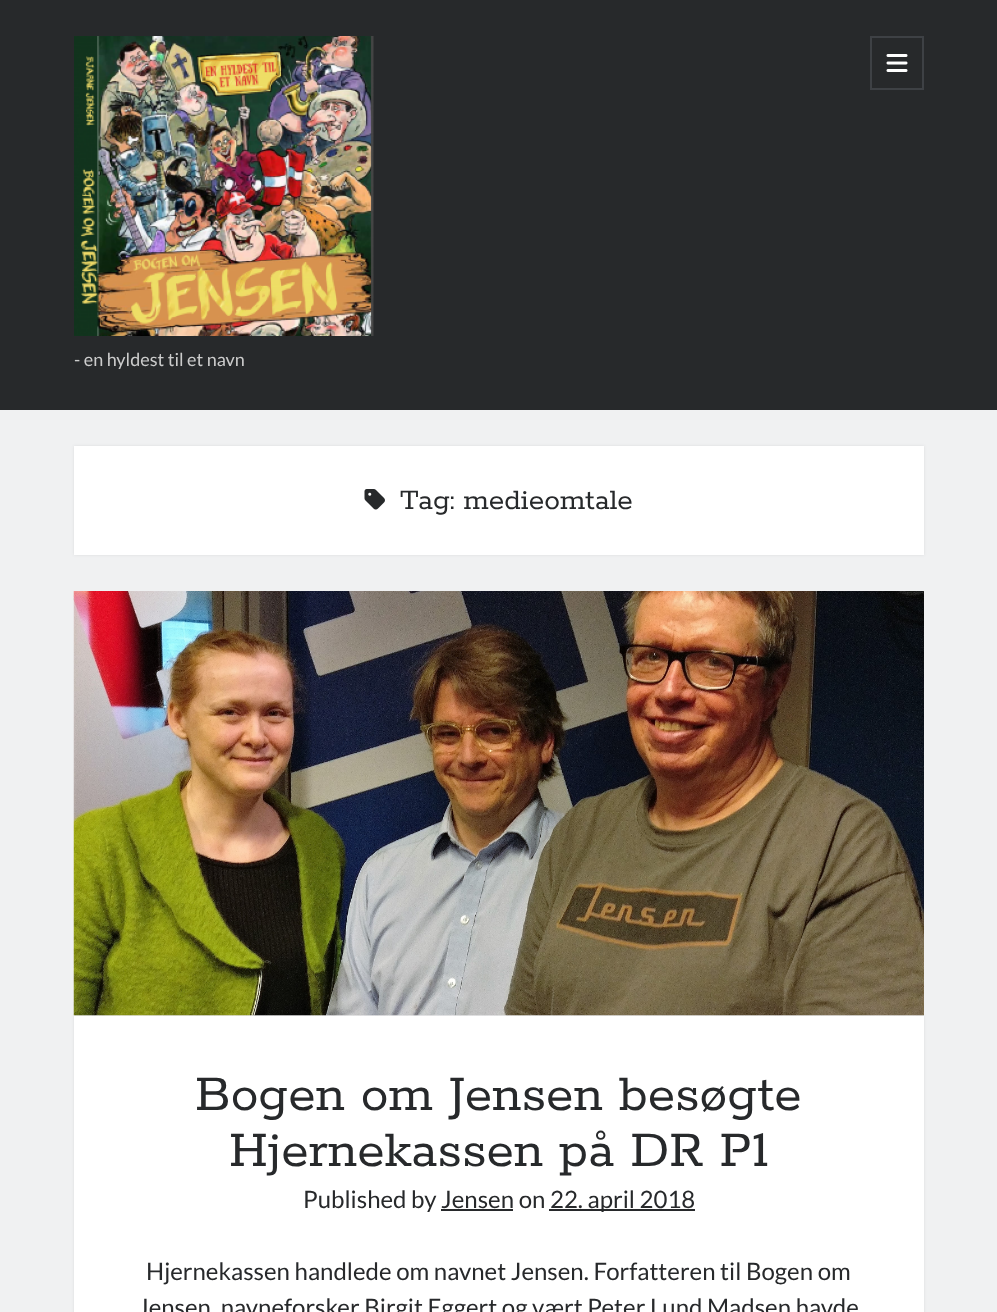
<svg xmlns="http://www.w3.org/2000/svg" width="997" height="1312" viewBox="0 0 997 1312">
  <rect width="100%" height="100%" fill="rgb(39,41,43)"/>
  <rect x="871" y="37" width="52" height="52" fill="none" stroke="rgb(62,65,69)" stroke-width="2"/>
  <image x="886" y="54" width="22" height="18" href="pic1.png"/>
  <image x="74" y="36" width="300" height="300" href="pic2.png"/>
  <text x="74" y="366" font-family="Lato" font-size="18" fill="rgb(204,204,204)">- en hyldest til et navn</text>
  <rect x="0" y="410" width="997" height="902" fill="rgb(240,241,242)"/>
  <rect x="74" y="446" width="850" height="109" fill="rgba(39,43,47,0.1)" filter="blur(1.5px)"/>
  <rect x="74" y="446" width="850" height="109" fill="rgb(255,255,255)"/>
  <image x="364" y="489" width="21" height="21" href="pic3.png"/>
  <text x="400" y="509" font-family="Rokkitt" font-size="31.5" fill="rgb(39,41,43)">Tag: medieomtale</text>
  <rect x="74" y="1016" width="850" height="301" fill="rgba(39,43,47,0.1)" filter="blur(1.5px)"/>
  <image x="73" y="591" width="851" height="425" href="pic4.png"/>
  <rect x="74" y="1016" width="850" height="296" fill="rgb(255,255,255)"/>
  <g font-family="Rokkitt" font-size="55.5" fill="rgb(39,41,43)">
    <text x="195" y="1110">Bogen om Jensen besøgte</text>
    <text x="229" y="1166">Hjernekassen på DR P1</text>
  </g>
  <text x="303" y="1208" font-family="Lato" font-size="24" fill="rgb(39,41,43)">Published by Jensen on</text>
  <rect x="441" y="1209" width="72" height="2" fill="rgb(39,41,43)"/>
  <rect x="549" y="1209" width="146" height="2" fill="rgb(39,41,43)"/>
  <g font-family="Lato" font-size="24" fill="rgb(39,41,43)">
    <text x="550" y="1208">22. april 2018</text>
    <text x="146" y="1280">Hjernekassen handlede om navnet Jensen. Forfatteren til Bogen om</text>
    <text x="138" y="1316">Jensen, navneforsker Birgit Eggert og vært Peter Lund Madsen havde</text>
  </g>
</svg>
